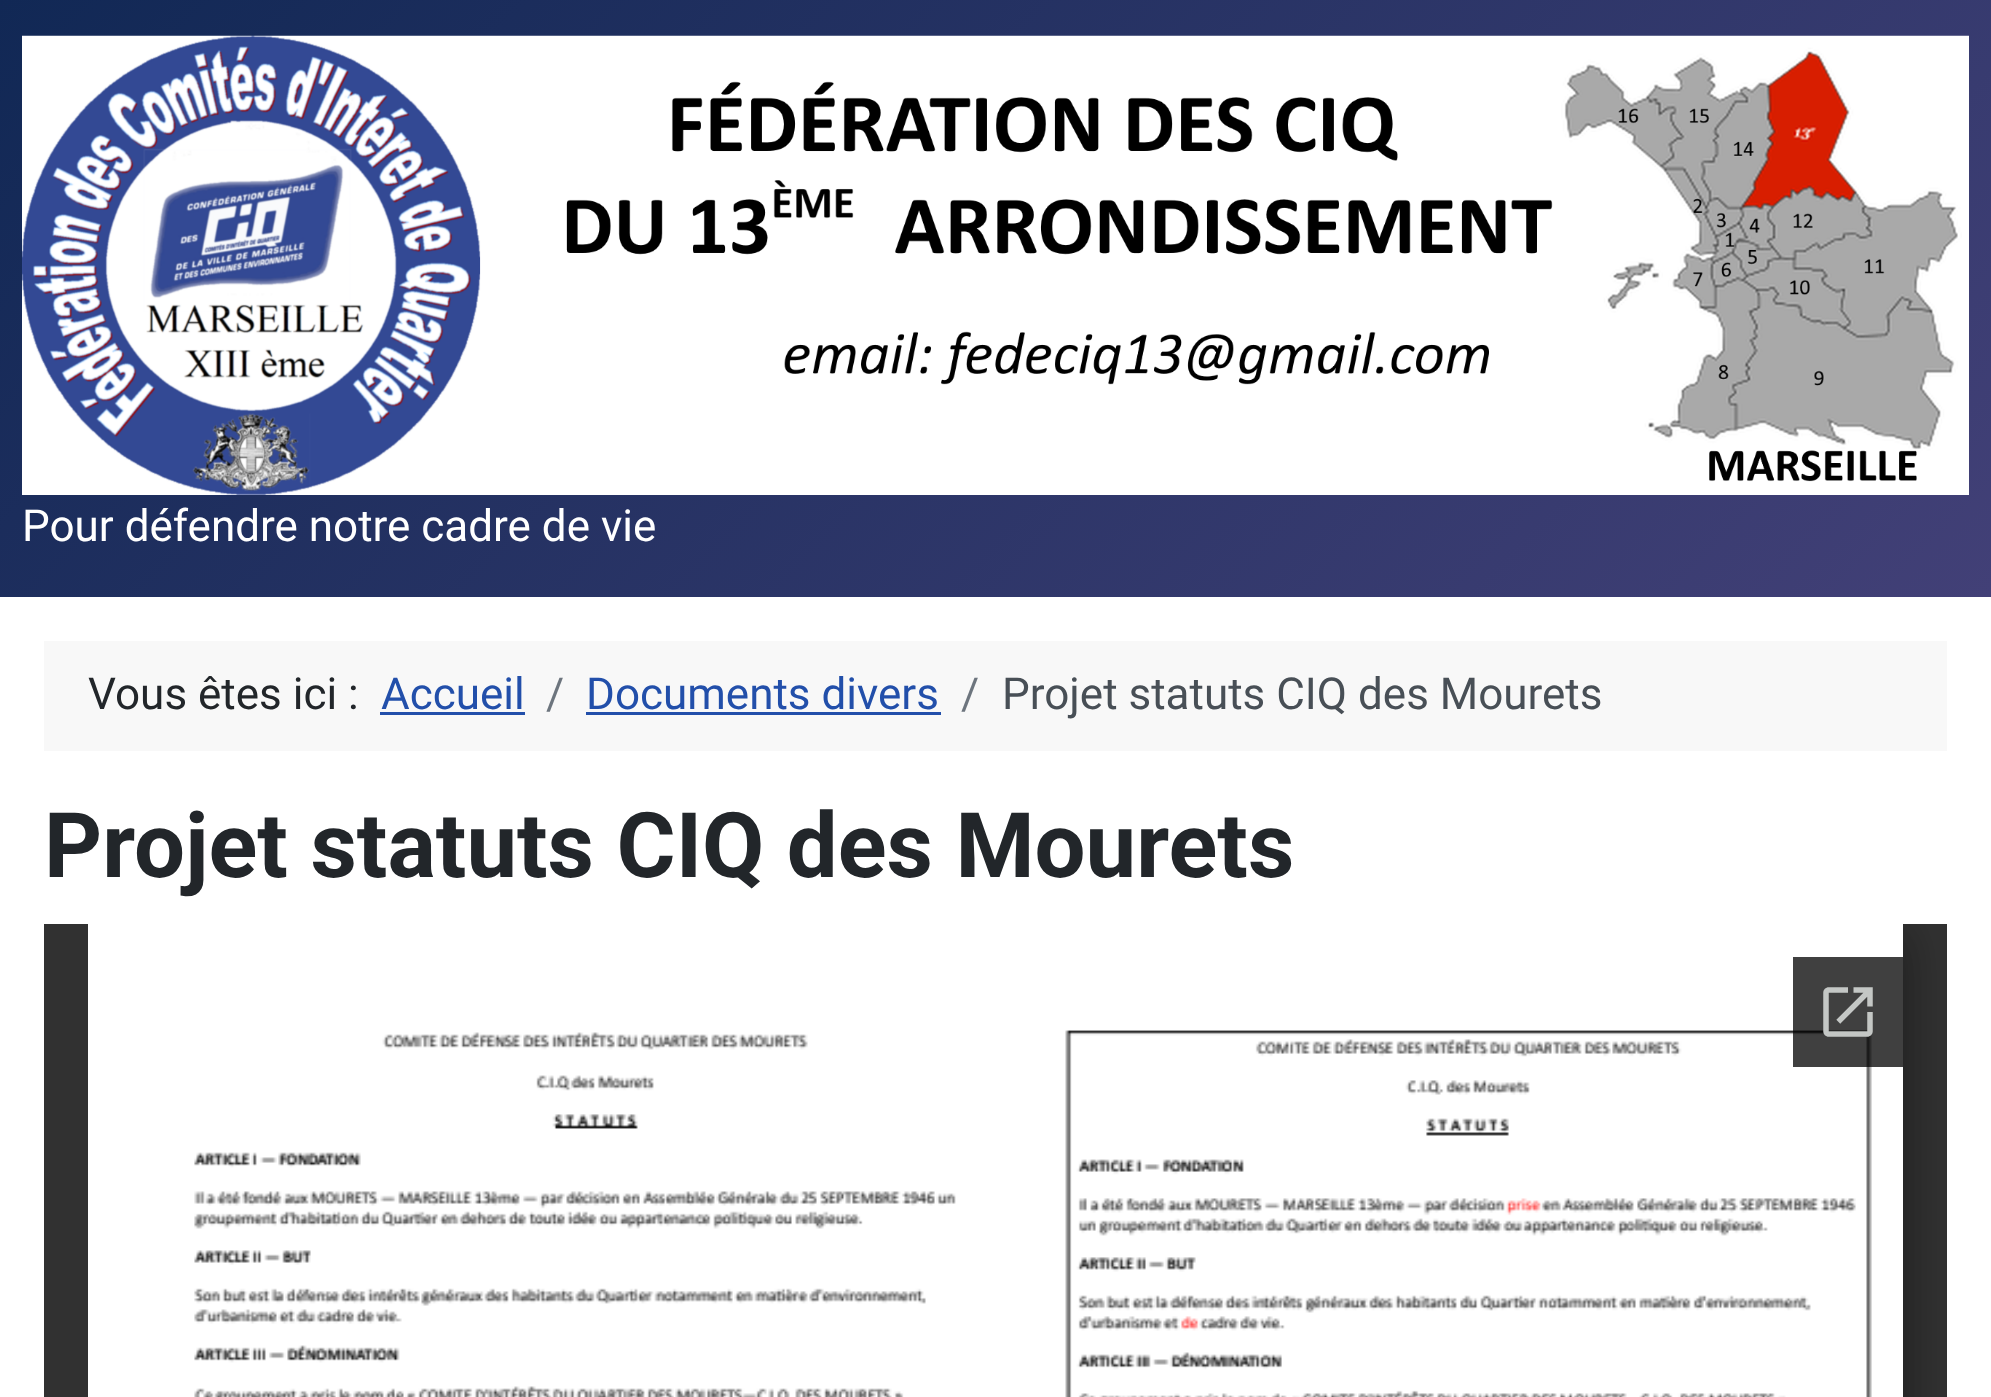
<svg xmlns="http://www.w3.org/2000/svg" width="1991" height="1397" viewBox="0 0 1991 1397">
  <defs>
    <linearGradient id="g1" gradientUnits="userSpaceOnUse" x1="349" y1="-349" x2="1642" y2="945"><stop offset="0" stop-color="rgb(17,40,85)"/><stop offset="1" stop-color="rgb(66,64,119)"/></linearGradient>
  </defs>
  <rect width="100%" height="100%" fill="rgb(255,255,255)"/>
  <rect x="0" y="0" width="1991" height="597" fill="url(#g1)"/>
  <image x="22" y="35" width="1947" height="460" href="pic1.png"/>
  <text x="22" y="541" font-family="Roboto" font-size="44" fill="rgb(255,255,255)">Pour défendre notre cadre de vie</text>
  <rect x="44" y="641" width="1903" height="110" fill="rgb(248,248,248)"/>
  <text x="88" y="709" font-family="Roboto" font-size="44" fill="rgb(34,38,42)">Vous êtes ici :</text>
  <text x="381" y="709" font-family="Roboto" font-size="44" fill="rgb(34,79,170)">Accueil</text>
  <rect x="380" y="712" width="145" height="3" fill="rgb(34,79,170)"/>
  <text x="546" y="709" font-family="Roboto" font-size="44" fill="rgb(109,117,126)">/</text>
  <text x="586" y="709" font-family="Roboto" font-size="44" fill="rgb(34,79,170)">Documents divers</text>
  <rect x="586" y="712" width="355" height="3" fill="rgb(34,79,170)"/>
  <text x="961" y="709" font-family="Roboto" font-size="44" fill="rgb(109,117,126)">/</text>
  <text x="1002" y="709" font-family="Roboto" font-size="44" fill="rgb(72,79,86)">Projet statuts CIQ des Mourets</text>
  <text x="44" y="877" font-family="Roboto" font-size="90.4" font-weight="bold" fill="rgb(34,38,42)">Projet statuts CIQ des Mourets</text>
  <image x="44" y="924" width="1903" height="473" href="pic2.png"/>
</svg>
